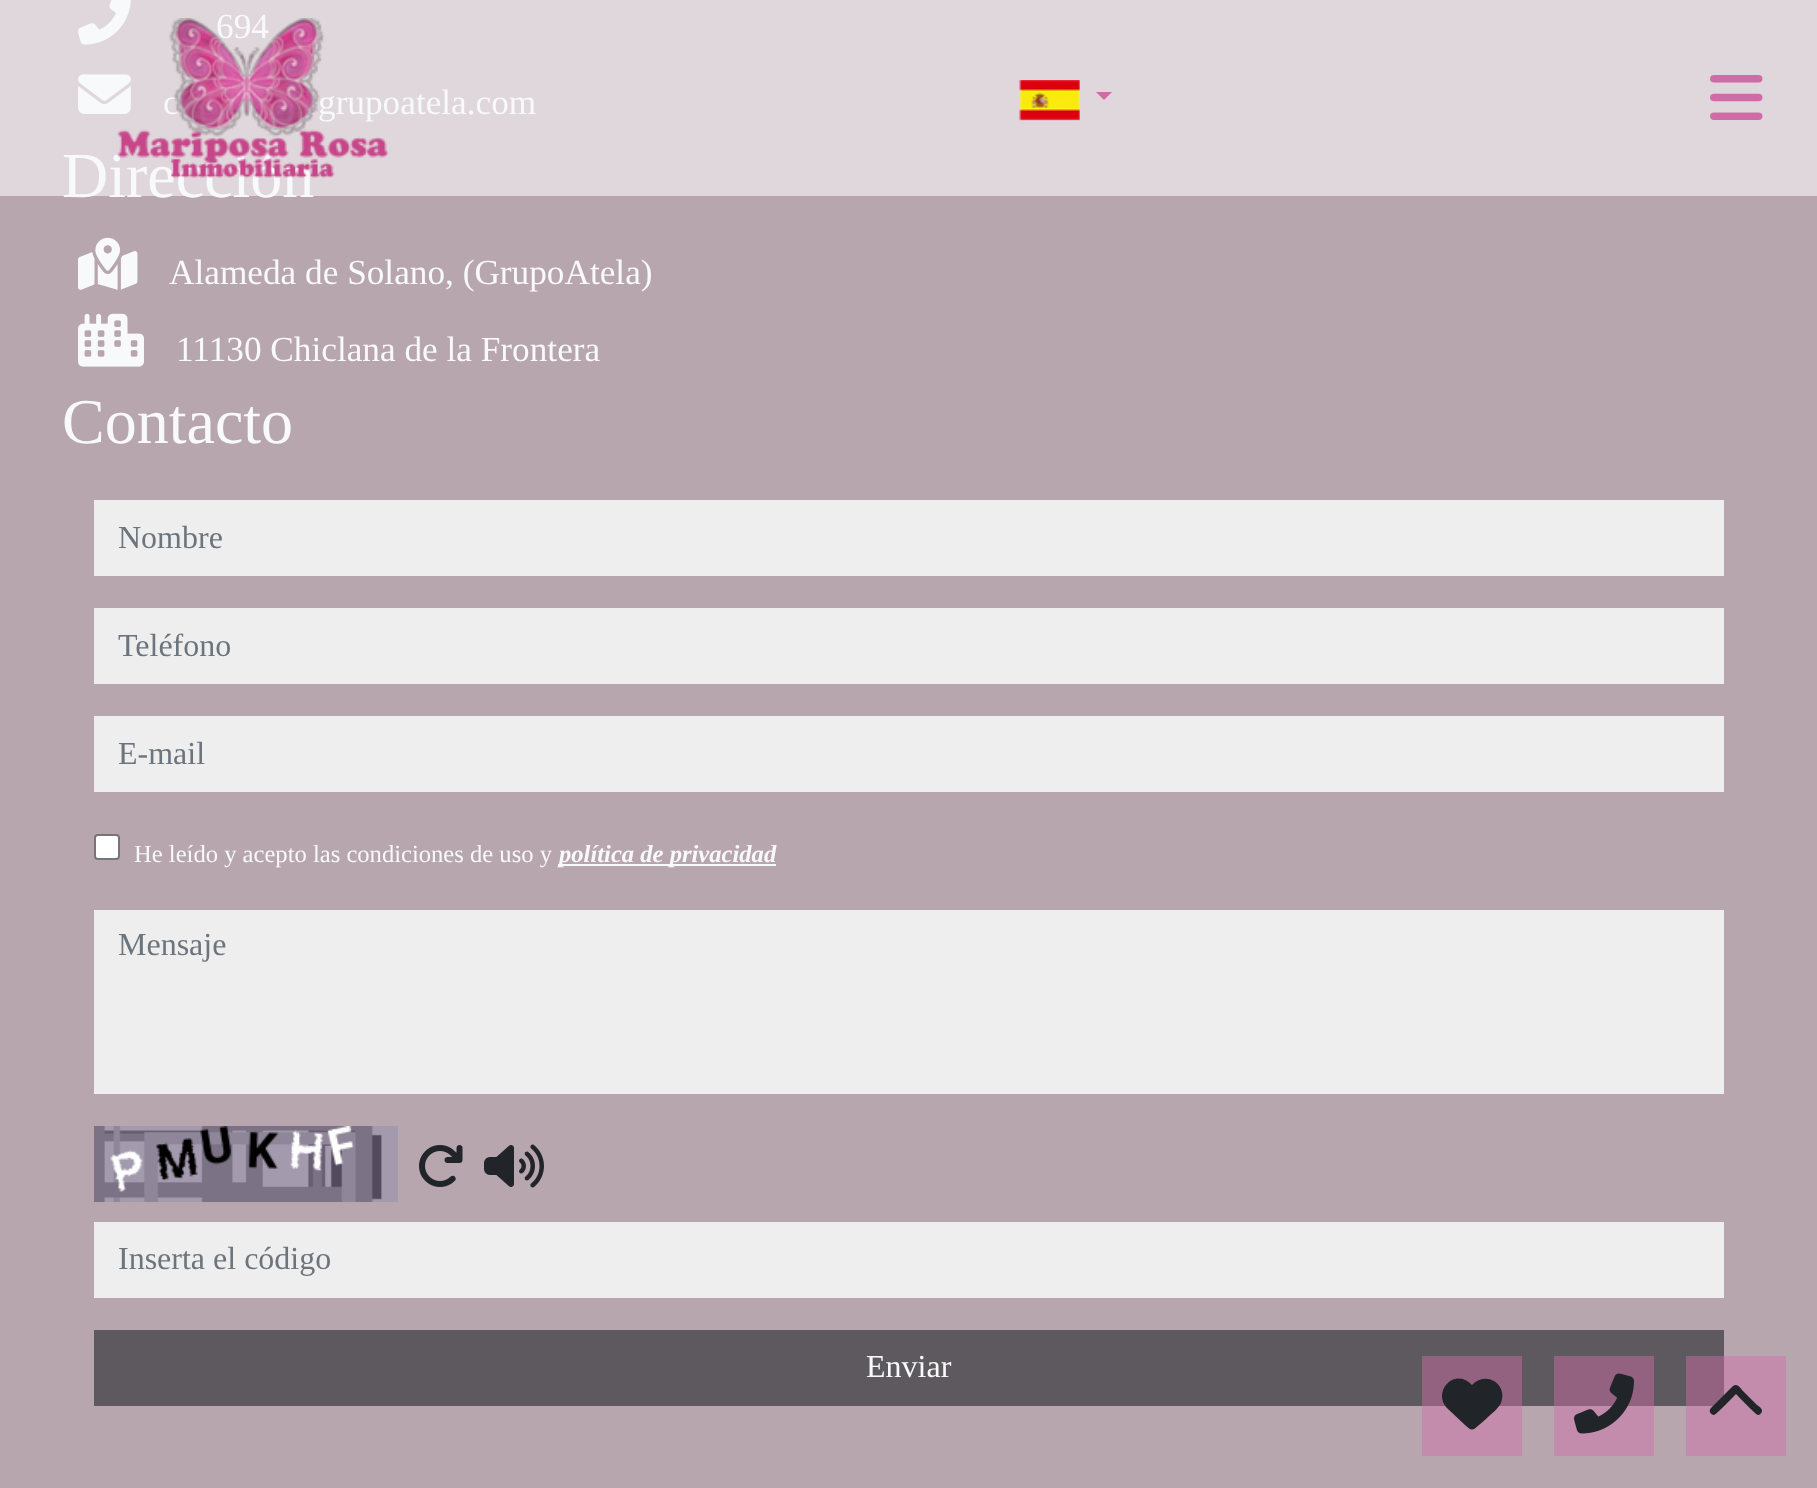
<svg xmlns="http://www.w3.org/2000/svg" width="1817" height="1488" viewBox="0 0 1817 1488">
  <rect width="100%" height="100%" fill="rgb(184,166,175)"/>
  <image x="78" y="0" width="53" height="45" href="pic4.png"/>
  <text x="216" y="38" font-family="Liberation Serif" font-size="35.25" fill="rgb(248,249,250)">694</text>
  <image x="78" y="74" width="53" height="40" href="pic5.png"/>
  <g font-family="Liberation Serif" font-size="35.25" fill="rgb(248,249,250)">
    <text x="163" y="114">c</text>
    <text x="318" y="114">grupoatela.com</text>
  </g>
  <text x="62" y="197" font-family="Liberation Serif" font-size="64" fill="rgb(248,249,250)">Dirección</text>
  <rect x="0" y="0" width="1817" height="196" fill="rgba(248,249,250,0.6)"/>
  <image x="117" y="18" width="272" height="160" href="pic1.png"/>
  <image x="1019" y="80" width="61" height="41" href="pic2.png"/>
  <path d="M1096 92H1112L1104 100Z" fill="rgb(207,108,168)"/>
  <image x="1710" y="75" width="53" height="45" href="pic3.png"/>
  <rect x="1422" y="1406" width="100" height="50" fill="rgb(195,139,172)"/>
  <rect x="1554" y="1406" width="100" height="50" fill="rgb(195,139,172)"/>
  <rect x="1686" y="1356" width="100" height="100" fill="rgb(195,139,172)"/>
  <image x="78" y="237" width="60" height="53" href="pic6.png"/>
  <text x="169" y="284" font-family="Liberation Serif" font-size="35.25" fill="rgb(248,249,250)">Alameda de Solano, (GrupoAtela)</text>
  <image x="78" y="313" width="66" height="54" href="pic7.png"/>
  <text x="176" y="361" font-family="Liberation Serif" font-size="35.25" fill="rgb(248,249,250)">11130 Chiclana de la Frontera</text>
  <text x="62" y="443" font-family="Liberation Serif" font-size="64" fill="rgb(248,249,250)">Contacto</text>
  <rect x="94" y="500" width="1630" height="76" fill="rgb(238,238,238)"/>
  <text x="118" y="548" font-family="Liberation Serif" font-size="32" fill="rgb(108,117,125)">Nombre</text>
  <rect x="94" y="608" width="1630" height="76" fill="rgb(238,238,238)"/>
  <text x="118" y="656" font-family="Liberation Serif" font-size="32" fill="rgb(108,117,125)">Teléfono</text>
  <rect x="94" y="716" width="1630" height="76" fill="rgb(238,238,238)"/>
  <text x="118" y="764" font-family="Liberation Serif" font-size="32" fill="rgb(108,117,125)">E-mail</text>
  <rect x="95" y="835" width="24" height="24" rx="3" fill="rgb(255,255,255)" stroke="rgb(118,118,118)" stroke-width="2"/>
  <text x="134" y="862" font-family="Liberation Serif" font-size="24.6" fill="rgb(248,249,250)">He leído y acepto las condiciones de uso y</text>
  <rect x="558" y="864" width="218" height="2" fill="rgb(248,249,250)"/>
  <text x="559" y="862" font-family="Liberation Serif" font-size="24.6" font-weight="bold" font-style="italic" fill="rgb(248,249,250)">política de privacidad</text>
  <rect x="94" y="910" width="1630" height="184" fill="rgb(238,238,238)"/>
  <text x="118" y="955" font-family="Liberation Serif" font-size="32" fill="rgb(108,117,125)">Mensaje</text>
  <image x="94" y="1126" width="304" height="76" href="pic8.png"/>
  <image x="419" y="1145" width="44" height="42" href="pic9.png"/>
  <image x="484" y="1144" width="60" height="44" href="pic10.png"/>
  <rect x="94" y="1222" width="1630" height="76" fill="rgb(238,238,238)"/>
  <text x="118" y="1269" font-family="Liberation Serif" font-size="32" fill="rgb(108,117,125)">Inserta el código</text>
  <rect x="94" y="1330" width="1630" height="76" fill="rgb(93,89,95)"/>
  <rect x="1422" y="1356" width="100" height="50" fill="rgb(147,98,129)"/>
  <rect x="1554" y="1356" width="100" height="50" fill="rgb(147,98,129)"/>
  <rect x="1686" y="1356" width="38" height="50" fill="rgb(147,98,129)"/>
  <text x="866" y="1377" font-family="Liberation Serif" font-size="32" fill="rgb(248,249,250)">Enviar</text>
  <path d="M1448 1409L1469 1428L1448 1409L1465 1425C1472 1431 1472 1431 1479 1425L1486 1419C1491 1414 1498 1409 1501 1403C1508 1385 1487 1370 1472 1385C1454 1366 1431 1393 1448 1409Z" fill="rgb(33,37,41)"/>
  <image x="1574" y="1373" width="60" height="61" href="pic11.png"/>
  <path d="M1733 1386C1737 1383 1740 1387 1742 1390L1757 1405C1760 1407 1764 1410 1761 1413C1761 1414 1759 1415 1758 1415C1755 1414 1739 1397 1736 1394C1733 1397 1717 1414 1714 1415C1711 1415 1708 1411 1711 1408Z" fill="rgb(33,37,41)"/>
</svg>
